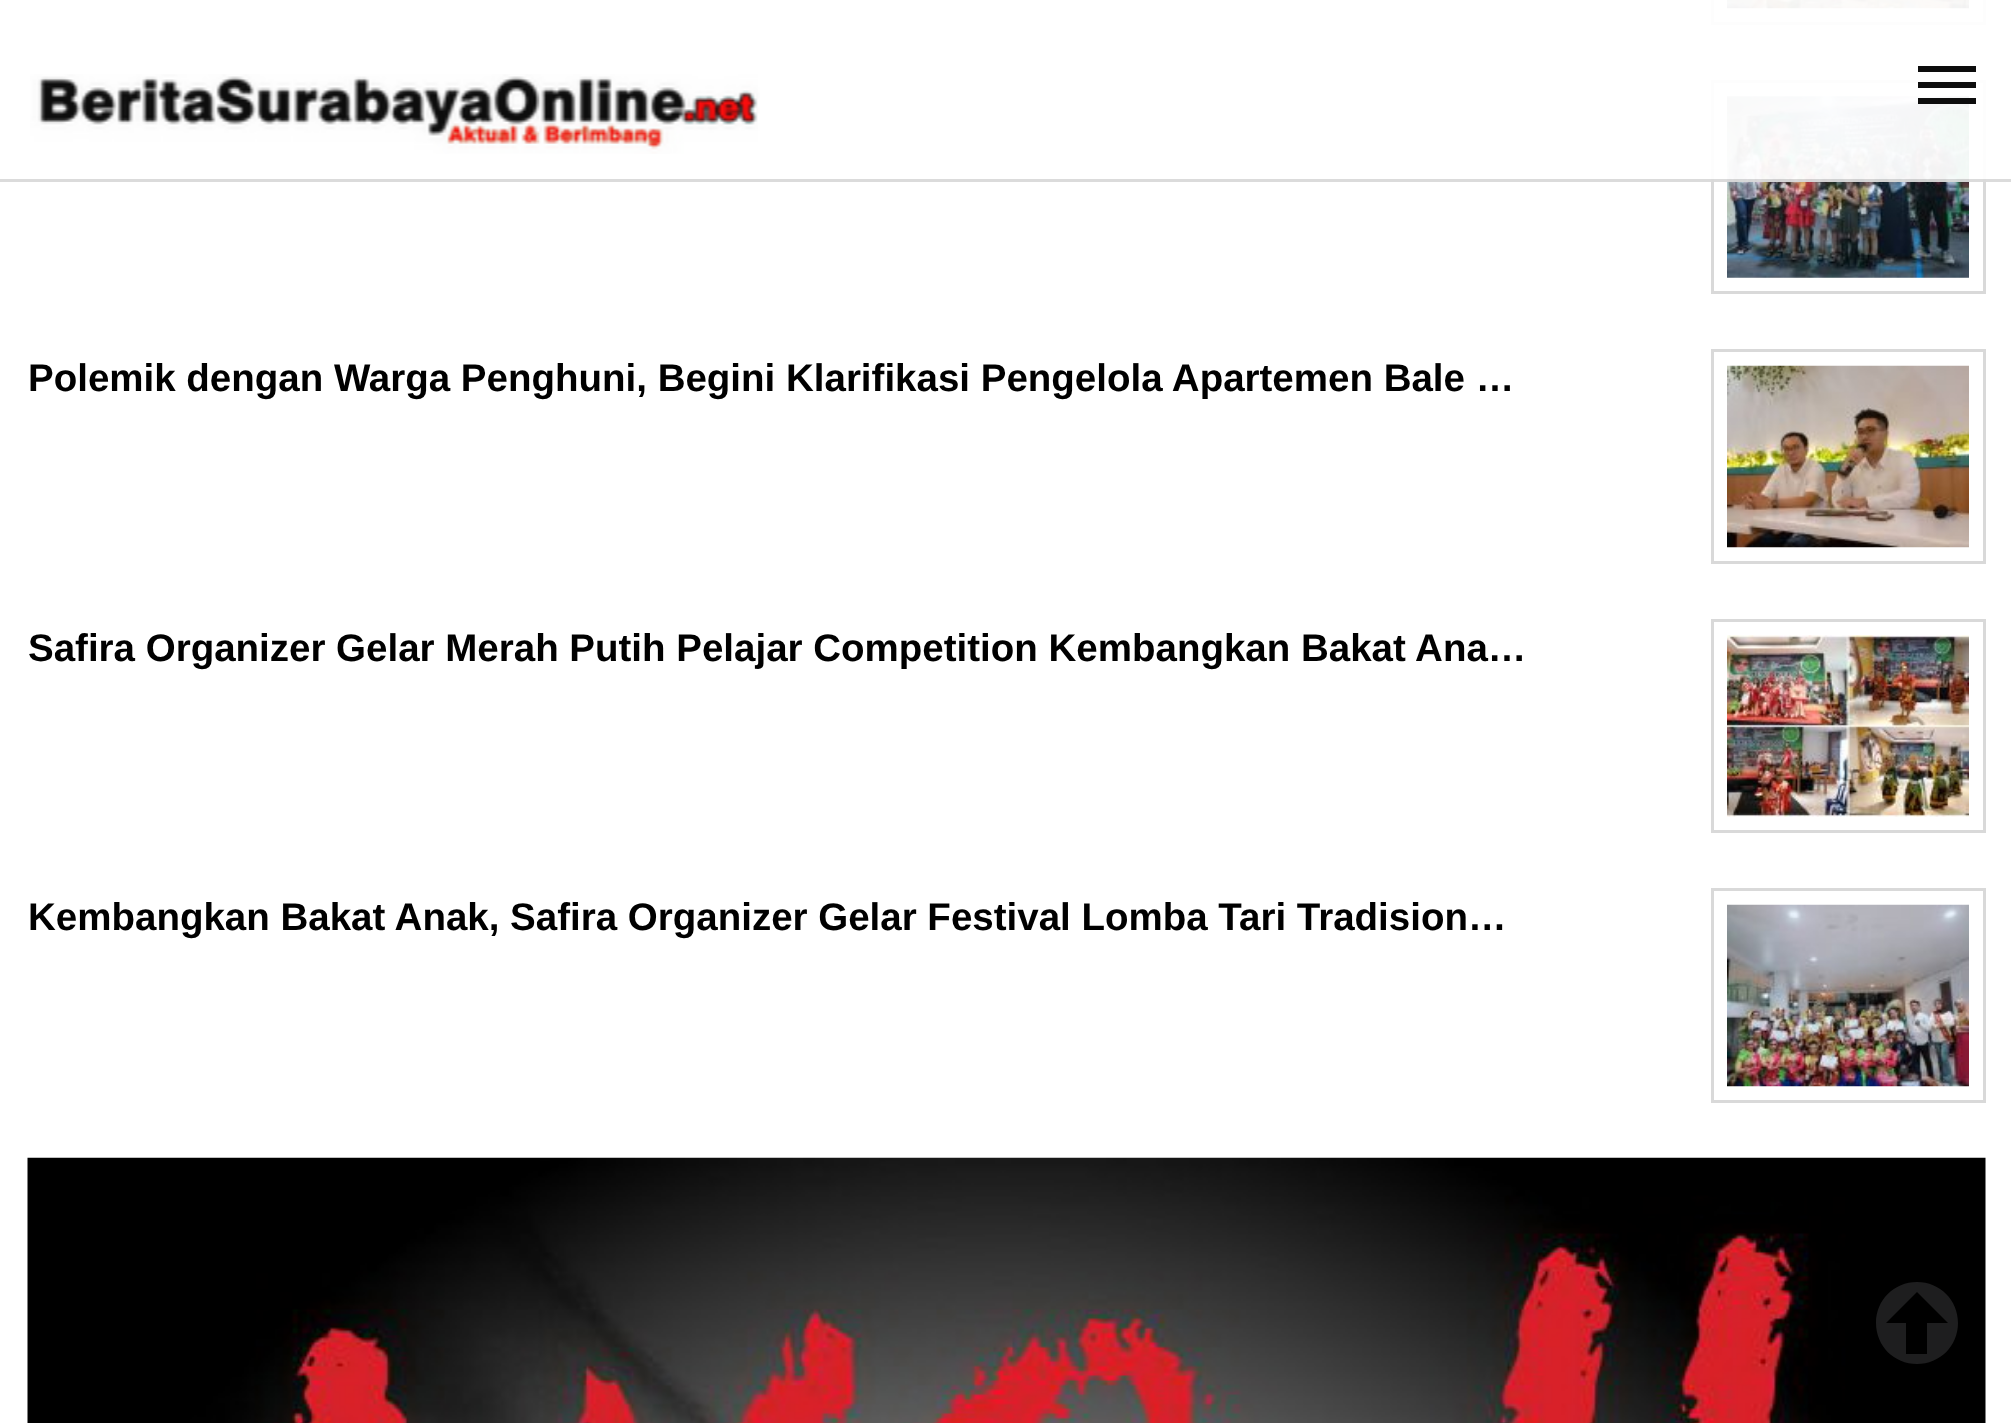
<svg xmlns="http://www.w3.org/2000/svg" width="2011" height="1423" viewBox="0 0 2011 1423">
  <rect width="100%" height="100%" fill="rgb(255,255,255)"/>
  <rect x="1712.5" y="-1.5" width="272" height="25" fill="none" stroke="rgb(217,217,217)" stroke-width="3"/>
  <image x="1727" y="0" width="242" height="9" href="pic2.png"/>
  <rect x="1712.5" y="81.5" width="272" height="211" fill="none" stroke="rgb(217,217,217)" stroke-width="3"/>
  <image x="1727" y="96" width="242" height="182" href="pic3.png"/>
  <rect x="1711" y="0" width="275" height="182" fill="rgba(255,255,255,0.95)"/>
  <rect x="0" y="179" width="2011" height="3" fill="rgba(0,0,0,0.14)"/>
  <image x="30" y="74" width="730" height="80" href="pic1.png"/>
  <path d="M1918 104H1976V98H1918ZM1918 88H1976V82H1918ZM1918 66V72H1976V66Z" fill="rgba(0,0,0,0.95)"/>
  <text x="28" y="391" font-family="Liberation Sans" font-size="38.5" font-weight="bold" fill="rgb(0,0,0)">Polemik dengan Warga Penghuni, Begini Klarifikasi Pengelola Apartemen Bale …</text>
  <rect x="1712.5" y="350.5" width="272" height="212" fill="none" stroke="rgb(217,217,217)" stroke-width="3"/>
  <image x="1727" y="365" width="242" height="183" href="pic4.png"/>
  <text x="28" y="661" font-family="Liberation Sans" font-size="38.5" font-weight="bold" fill="rgb(0,0,0)">Safira Organizer Gelar Merah Putih Pelajar Competition Kembangkan Bakat Ana…</text>
  <rect x="1712.5" y="620.5" width="272" height="211" fill="none" stroke="rgb(217,217,217)" stroke-width="3"/>
  <image x="1727" y="635" width="242" height="182" href="pic5.png"/>
  <text x="28" y="930" font-family="Liberation Sans" font-size="38.5" font-weight="bold" fill="rgb(0,0,0)">Kembangkan Bakat Anak, Safira Organizer Gelar Festival Lomba Tari Tradision…</text>
  <rect x="1712.5" y="889.5" width="272" height="212" fill="none" stroke="rgb(217,217,217)" stroke-width="3"/>
  <image x="1727" y="904" width="242" height="183" href="pic6.png"/>
  <image x="27" y="1157" width="1959" height="266" href="pic7.png"/>
  <path d="M1917 1282C1894 1282 1876 1300 1876 1323C1876 1346 1894 1364 1917 1364C1940 1364 1958 1346 1958 1323C1958 1300 1940 1282 1917 1282ZM1917 1292L1948 1323H1927V1354H1906V1323H1886Z" fill="rgb(30,30,31)"/>
</svg>
